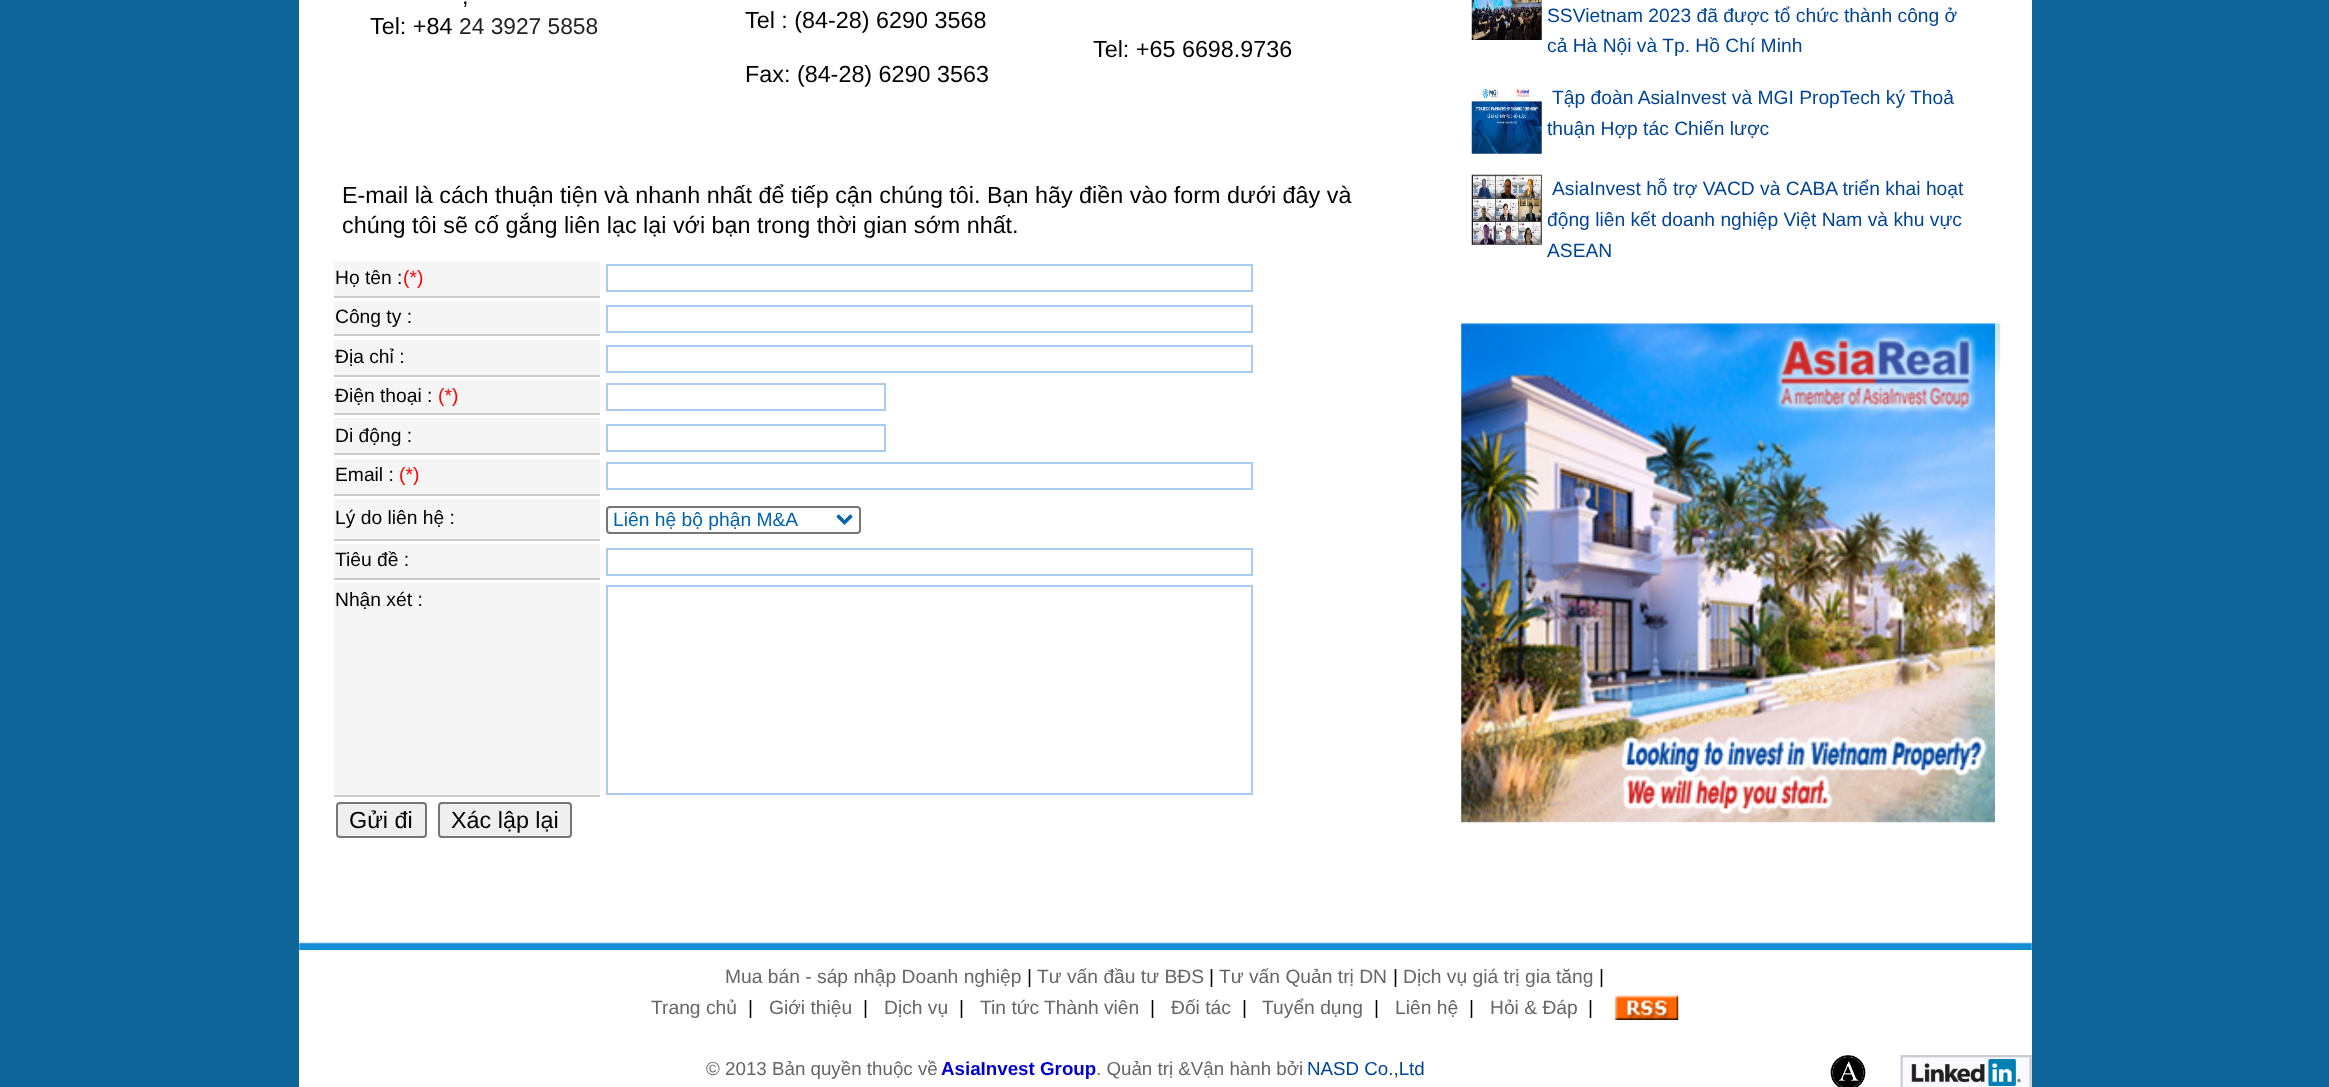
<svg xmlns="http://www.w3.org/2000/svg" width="2329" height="1087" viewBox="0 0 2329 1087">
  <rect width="100%" height="100%" fill="rgb(15,102,155)"/>
  <rect x="299" y="0" width="1733" height="1087" fill="rgb(255,255,255)"/>
  <g font-family="Liberation Sans" font-size="23.35" fill="rgb(0,0,0)">
    <text x="462" y="4">,</text>
    <text x="370" y="34">Tel: +84</text>
  </g>
  <text x="459" y="34" font-family="Liberation Sans" font-size="22.75" fill="rgb(34,34,34)">24 3927 5858</text>
  <g font-family="Liberation Sans" font-size="23.35" fill="rgb(0,0,0)">
    <text x="745" y="28">Tel : (84-28) 6290 3568</text>
    <text x="745" y="82">Fax: (84-28) 6290 3563</text>
    <text x="1093" y="57">Tel: +65 6698.9736</text>
    <text>
      <tspan x="342" y="203">E-mail là cách thuận tiện và nhanh nhất để tiếp cận chúng tôi. Bạn hãy điền vào form dưới đây và</tspan>
      <tspan x="342" y="233">chúng tôi sẽ cố gắng liên lạc lại với bạn trong thời gian sớm nhất.</tspan>
    </text>
  </g>
  <rect x="334" y="261" width="266" height="35" fill="rgb(245,245,245)"/>
  <rect x="334" y="296" width="266" height="2" fill="rgb(204,204,204)"/>
  <text x="335" y="284" font-family="Liberation Sans" font-size="19.25" fill="rgb(0,0,0)">Họ tên :</text>
  <text x="403" y="284" font-family="Liberation Sans" font-size="19.25" fill="rgb(255,0,0)">(*)</text>
  <rect x="607" y="265" width="645" height="26" fill="none" stroke="rgb(170,204,238)" stroke-width="2"/>
  <rect x="334" y="301" width="266" height="33" fill="rgb(245,245,245)"/>
  <rect x="334" y="334" width="266" height="2" fill="rgb(204,204,204)"/>
  <text x="335" y="323" font-family="Liberation Sans" font-size="19.25" fill="rgb(0,0,0)">Công ty :</text>
  <rect x="607" y="306" width="645" height="26" fill="none" stroke="rgb(170,204,238)" stroke-width="2"/>
  <rect x="334" y="340" width="266" height="35" fill="rgb(245,245,245)"/>
  <rect x="334" y="375" width="266" height="2" fill="rgb(204,204,204)"/>
  <text x="335" y="363" font-family="Liberation Sans" font-size="19.25" fill="rgb(0,0,0)">Địa chỉ :</text>
  <rect x="607" y="346" width="645" height="26" fill="none" stroke="rgb(170,204,238)" stroke-width="2"/>
  <rect x="334" y="380" width="266" height="33" fill="rgb(245,245,245)"/>
  <rect x="334" y="413" width="266" height="2" fill="rgb(204,204,204)"/>
  <text x="335" y="402" font-family="Liberation Sans" font-size="19.25" fill="rgb(0,0,0)">Điện thoại :</text>
  <text x="438" y="402" font-family="Liberation Sans" font-size="19.25" fill="rgb(255,0,0)">(*)</text>
  <rect x="607" y="384" width="278" height="26" fill="none" stroke="rgb(170,204,238)" stroke-width="2"/>
  <rect x="334" y="418" width="266" height="35" fill="rgb(245,245,245)"/>
  <rect x="334" y="453" width="266" height="2" fill="rgb(204,204,204)"/>
  <text x="335" y="442" font-family="Liberation Sans" font-size="19.25" fill="rgb(0,0,0)">Di động :</text>
  <rect x="607" y="425" width="278" height="26" fill="none" stroke="rgb(170,204,238)" stroke-width="2"/>
  <rect x="334" y="459" width="266" height="35" fill="rgb(245,245,245)"/>
  <rect x="334" y="494" width="266" height="2" fill="rgb(204,204,204)"/>
  <text x="335" y="481" font-family="Liberation Sans" font-size="19.25" fill="rgb(0,0,0)">Email :</text>
  <text x="399" y="481" font-family="Liberation Sans" font-size="19.25" fill="rgb(255,0,0)">(*)</text>
  <rect x="607" y="463" width="645" height="26" fill="none" stroke="rgb(170,204,238)" stroke-width="2"/>
  <rect x="334" y="499" width="266" height="40" fill="rgb(245,245,245)"/>
  <rect x="334" y="539" width="266" height="2" fill="rgb(204,204,204)"/>
  <text x="335" y="524" font-family="Liberation Sans" font-size="19.25" fill="rgb(0,0,0)">Lý do liên hệ :</text>
  <rect x="607" y="507" width="253" height="26" rx="3" fill="none" stroke="rgb(118,118,118)" stroke-width="2"/>
  <path d="M837.5 515.5L844.5 522.5L851.5 515.5" fill="none" stroke="rgb(0,99,176)" stroke-width="3.5"/>
  <text x="613" y="526" font-family="Liberation Sans" font-size="19.25" fill="rgb(0,99,176)">Liên hệ bộ phận M&amp;A</text>
  <rect x="334" y="544" width="266" height="34" fill="rgb(245,245,245)"/>
  <rect x="334" y="578" width="266" height="2" fill="rgb(204,204,204)"/>
  <text x="335" y="566" font-family="Liberation Sans" font-size="19.25" fill="rgb(0,0,0)">Tiêu đề :</text>
  <rect x="607" y="549" width="645" height="26" fill="none" stroke="rgb(170,204,238)" stroke-width="2"/>
  <rect x="334" y="583" width="266" height="212" fill="rgb(245,245,245)"/>
  <rect x="334" y="795" width="266" height="2" fill="rgb(204,204,204)"/>
  <text x="335" y="606" font-family="Liberation Sans" font-size="19.25" fill="rgb(0,0,0)">Nhận xét :</text>
  <rect x="607" y="586" width="645" height="208" fill="none" stroke="rgb(170,204,238)" stroke-width="2"/>
  <rect x="337" y="803" width="89" height="34" rx="3" fill="rgb(239,239,239)" stroke="rgb(118,118,118)" stroke-width="2"/>
  <text x="349" y="828" font-family="Liberation Sans" font-size="23.35" fill="rgb(0,0,0)">Gửi đi</text>
  <rect x="439" y="803" width="132" height="34" rx="3" fill="rgb(239,239,239)" stroke="rgb(118,118,118)" stroke-width="2"/>
  <text x="451" y="828" font-family="Liberation Sans" font-size="23.35" fill="rgb(0,0,0)">Xác lập lại</text>
  <image x="1471" y="0" width="71" height="40" href="pic1.png"/>
  <g font-family="Liberation Sans" font-size="19.25" fill="rgb(0,69,148)">
    <text>
      <tspan x="1547" y="22">SSVietnam 2023 đã được tổ chức thành công ở</tspan>
      <tspan x="1547" y="52">cả Hà Nội và Tp. Hồ Chí Minh</tspan>
    </text>
  </g>
  <image x="1471" y="88" width="71" height="66" href="pic2.png"/>
  <g font-family="Liberation Sans" font-size="19.25" fill="rgb(0,69,148)">
    <text x="1552" y="104">Tập đoàn AsiaInvest và MGI PropTech ký Thoả</text>
    <text x="1547" y="135">thuận Hợp tác Chiến lược</text>
  </g>
  <image x="1471" y="174" width="71" height="71" href="pic3.png"/>
  <g font-family="Liberation Sans" font-size="19.25" fill="rgb(0,69,148)">
    <text x="1552" y="195">AsiaInvest hỗ trợ VACD và CABA triển khai hoạt</text>
    <text>
      <tspan x="1547" y="226">động liên kết doanh nghiệp Việt Nam và khu vực</tspan>
      <tspan x="1547" y="257">ASEAN</tspan>
    </text>
  </g>
  <image x="1461" y="323" width="540" height="58" href="pic4.png"/>
  <image x="1461" y="323" width="534" height="500" href="pic5.png"/>
  <image x="299" y="942" width="1733" height="8" href="pic6.png"/>
  <text x="725" y="983" font-family="Liberation Sans" font-size="19.25" fill="rgb(102,102,102)">Mua bán - sáp nhập Doanh nghiệp</text>
  <text x="1027" y="983" font-family="Liberation Sans" font-size="19.25" fill="rgb(0,0,0)">|</text>
  <text x="1037" y="983" font-family="Liberation Sans" font-size="19.25" fill="rgb(102,102,102)">Tư vấn đầu tư BĐS</text>
  <text x="1209" y="983" font-family="Liberation Sans" font-size="19.25" fill="rgb(0,0,0)">|</text>
  <text x="1219" y="983" font-family="Liberation Sans" font-size="19.25" fill="rgb(102,102,102)">Tư vấn Quản trị DN</text>
  <text x="1393" y="983" font-family="Liberation Sans" font-size="19.25" fill="rgb(0,0,0)">|</text>
  <text x="1403" y="983" font-family="Liberation Sans" font-size="19.25" fill="rgb(102,102,102)">Dịch vụ giá trị gia tăng</text>
  <text x="1599" y="983" font-family="Liberation Sans" font-size="19.25" fill="rgb(0,0,0)">|</text>
  <text x="651" y="1014" font-family="Liberation Sans" font-size="19.25" fill="rgb(102,102,102)">Trang chủ</text>
  <text x="748" y="1014" font-family="Liberation Sans" font-size="19.25" fill="rgb(0,0,0)">|</text>
  <text x="769" y="1014" font-family="Liberation Sans" font-size="19.25" fill="rgb(102,102,102)">Giới thiệu</text>
  <text x="863" y="1014" font-family="Liberation Sans" font-size="19.25" fill="rgb(0,0,0)">|</text>
  <text x="884" y="1014" font-family="Liberation Sans" font-size="19.25" fill="rgb(102,102,102)">Dịch vụ</text>
  <text x="959" y="1014" font-family="Liberation Sans" font-size="19.25" fill="rgb(0,0,0)">|</text>
  <g font-family="Liberation Sans" font-size="19.25" fill="rgb(102,102,102)">
    <text x="980" y="1014">Tin tức</text>
    <text x="1044" y="1014">Thành viên</text>
  </g>
  <text x="1150" y="1014" font-family="Liberation Sans" font-size="19.25" fill="rgb(0,0,0)">|</text>
  <text x="1171" y="1014" font-family="Liberation Sans" font-size="19.25" fill="rgb(102,102,102)">Đối tác</text>
  <text x="1242" y="1014" font-family="Liberation Sans" font-size="19.25" fill="rgb(0,0,0)">|</text>
  <text x="1262" y="1014" font-family="Liberation Sans" font-size="19.25" fill="rgb(102,102,102)">Tuyển dụng</text>
  <text x="1374" y="1014" font-family="Liberation Sans" font-size="19.25" fill="rgb(0,0,0)">|</text>
  <text x="1395" y="1014" font-family="Liberation Sans" font-size="19.25" fill="rgb(102,102,102)">Liên hệ</text>
  <text x="1469" y="1014" font-family="Liberation Sans" font-size="19.25" fill="rgb(0,0,0)">|</text>
  <text x="1490" y="1014" font-family="Liberation Sans" font-size="19.25" fill="rgb(102,102,102)">Hỏi &amp; Đáp</text>
  <text x="1588" y="1014" font-family="Liberation Sans" font-size="19.25" fill="rgb(0,0,0)">|</text>
  <image x="1615" y="995" width="64" height="25" href="pic7.png"/>
  <text x="706" y="1075" font-family="Liberation Sans" font-size="18.75" fill="rgb(102,102,102)">© 2013 Bản quyền thuộc về</text>
  <text x="941" y="1075" font-family="Liberation Sans" font-size="18.75" font-weight="bold" fill="rgb(0,0,205)">AsiaInvest Group</text>
  <text x="1096" y="1075" font-family="Liberation Sans" font-size="18.75" fill="rgb(102,102,102)">. Quản trị &amp;Vận hành bởi</text>
  <text x="1307" y="1075" font-family="Liberation Sans" font-size="18.75" fill="rgb(0,69,148)">NASD Co.,Ltd</text>
  <image x="1830" y="1055" width="36" height="32" href="pic8.png"/>
  <image x="1900" y="1055" width="132" height="32" href="pic9.png"/>
</svg>
